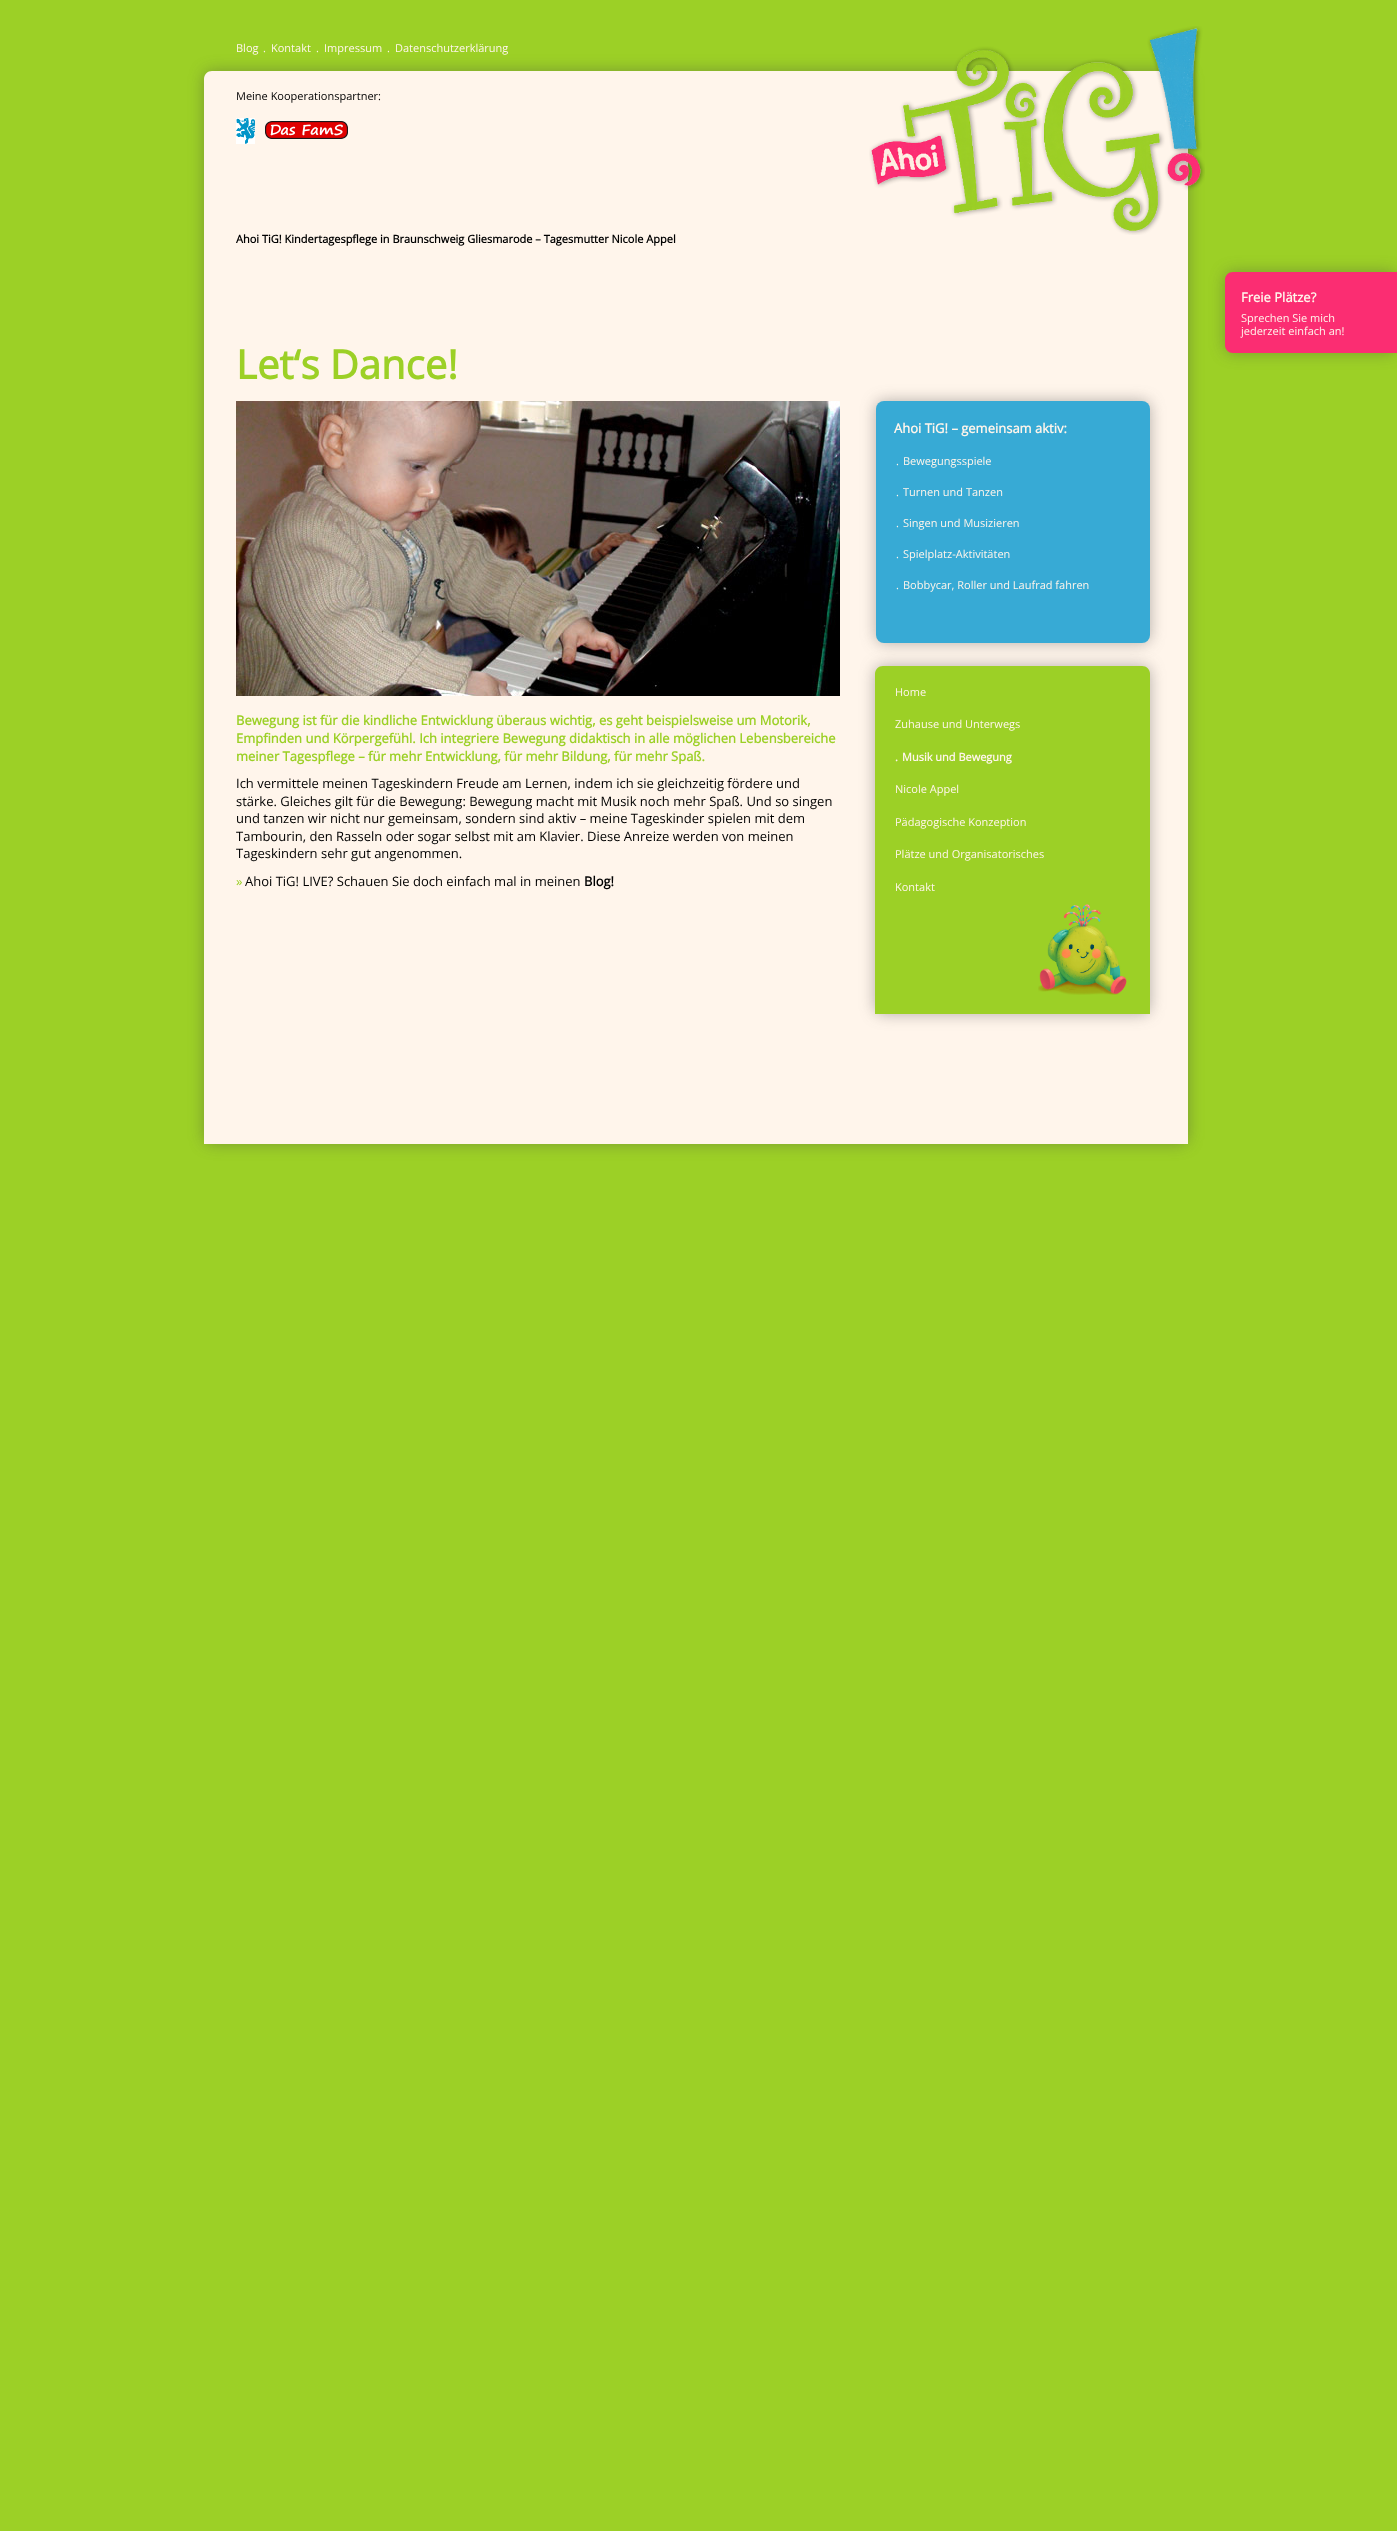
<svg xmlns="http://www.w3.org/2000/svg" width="1397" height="2531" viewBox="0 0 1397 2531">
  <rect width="100%" height="100%" fill="rgb(156,208,38)"/>
  <rect x="204" y="71" width="984" height="1073" rx="8" fill="rgba(68,68,68,0.4)" filter="blur(7.5px)"/>
  <g font-family="Open Sans" font-size="11" fill="rgb(255,245,235)">
    <text x="236" y="52">Blog</text>
    <text x="263" y="52">.</text>
    <text x="271" y="52">Kontakt</text>
    <text x="316" y="52">.</text>
    <text x="324" y="52">Impressum</text>
    <text x="387" y="52">.</text>
    <text x="395" y="52">Datenschutzerklärung</text>
  </g>
  <path d="M212 71H1188V1144H204V79C204 74.5 207.5 71 212 71Z" fill="rgb(255,245,235)"/>
  <text x="236" y="100" font-family="Open Sans" font-size="11" fill="rgb(0,0,0)">Meine Kooperationspartner:</text>
  <image x="236" y="118" width="19" height="26" href="pic1.png"/>
  <image x="265" y="121" width="83" height="18" href="pic2.png"/>
  <image x="869" y="26" width="336" height="209" href="pic3.png"/>
  <text x="236" y="243" font-family="Open Sans" font-size="11" font-weight="bold" fill="rgb(0,0,0)">Ahoi TiG! Kindertagespflege in Braunschweig Gliesmarode – Tagesmutter Nicole Appel</text>
  <text x="236" y="379" font-family="Open Sans" font-size="40" font-weight="bold" fill="rgb(156,208,38)">Let‘s Dance!</text>
  <image x="236" y="401" width="604" height="295" href="pic4.png"/>
  <rect x="876" y="401" width="274" height="242" rx="8" fill="rgba(68,68,68,0.4)" filter="blur(7.5px)"/>
  <rect x="876" y="401" width="274" height="242" rx="8" fill="rgb(55,170,213)"/>
  <text x="894" y="433" font-family="Open Sans" font-size="13" font-weight="bold" fill="rgb(255,245,235)">Ahoi TiG! – gemeinsam aktiv:</text>
  <g font-family="Open Sans" font-size="11" fill="rgb(255,245,235)">
    <text x="896" y="465">.</text>
    <text x="903" y="465">Bewegungsspiele</text>
    <text x="896" y="496">.</text>
    <text x="903" y="496">Turnen und Tanzen</text>
    <text x="896" y="527">.</text>
    <text x="903" y="527">Singen und Musizieren</text>
    <text x="896" y="558">.</text>
    <text x="903" y="558">Spielplatz-Aktivitäten</text>
    <text x="896" y="589">.</text>
    <text x="903" y="589">Bobbycar, Roller und Laufrad fahren</text>
  </g>
  <g font-family="Open Sans" font-size="13" font-weight="bold" fill="rgb(156,208,38)">
    <text>
      <tspan x="236" y="725">Bewegung ist für die kindliche Entwicklung überaus wichtig, es geht beispielsweise um Motorik,</tspan>
      <tspan x="236" y="743">Empfinden und Körpergefühl. Ich integriere Bewegung didaktisch in alle möglichen Lebensbereiche</tspan>
      <tspan x="236" y="761">meiner Tagespflege – für mehr Entwicklung, für mehr Bildung, für mehr Spaß.</tspan>
    </text>
  </g>
  <rect x="875" y="666" width="275" height="348" rx="8" fill="rgba(68,68,68,0.4)" filter="blur(7.5px)"/>
  <path d="M883 666H1142C1146.5 666 1150 669.5 1150 674V1014H875V674C875 669.5 878.5 666 883 666Z" fill="rgb(156,208,38)"/>
  <g font-family="Open Sans" font-size="11" fill="rgb(255,245,235)">
    <text x="895" y="696">Home</text>
    <text x="895" y="728">Zuhause und Unterwegs</text>
  </g>
  <g font-family="Open Sans" font-size="11" font-weight="bold" fill="rgb(255,245,235)">
    <text x="895" y="761">.</text>
    <text x="902" y="761">Musik und Bewegung</text>
  </g>
  <g font-family="Open Sans" font-size="11" fill="rgb(255,245,235)">
    <text x="895" y="793">Nicole Appel</text>
    <text x="895" y="826">Pädagogische Konzeption</text>
    <text x="895" y="858">Plätze und Organisatorisches</text>
    <text x="895" y="891">Kontakt</text>
  </g>
  <image x="1038" y="904" width="89" height="91" href="pic5.png"/>
  <g font-family="Open Sans" font-size="13" fill="rgb(0,0,0)">
    <text>
      <tspan x="236" y="788">Ich vermittele meinen Tageskindern Freude am Lernen, indem ich sie gleichzeitig fördere und</tspan>
      <tspan x="236" y="806">stärke. Gleiches gilt für die Bewegung: Bewegung macht mit Musik noch mehr Spaß. Und so singen</tspan>
      <tspan x="236" y="823">und tanzen wir nicht nur gemeinsam, sondern sind aktiv – meine Tageskinder spielen mit dem</tspan>
      <tspan x="236" y="841">Tambourin, den Rasseln oder sogar selbst mit am Klavier. Diese Anreize werden von meinen</tspan>
      <tspan x="236" y="858">Tageskindern sehr gut angenommen.</tspan>
    </text>
  </g>
  <text x="236" y="886" font-family="Open Sans" font-size="13" fill="rgb(156,208,38)">»</text>
  <text x="245" y="886" font-family="Open Sans" font-size="13" fill="rgb(0,0,0)">Ahoi TiG! LIVE? Schauen Sie doch einfach mal in meinen</text>
  <text x="584" y="886" font-family="Open Sans" font-size="13" font-weight="bold" fill="rgb(0,0,0)">Blog!</text>
  <rect x="1225" y="272" width="172" height="81" rx="8" fill="rgba(68,68,68,0.4)" filter="blur(7.5px)"/>
  <path d="M1233 272H1397V353H1233C1228.5 353 1225 349.5 1225 345V280C1225 275.5 1228.5 272 1233 272Z" fill="rgb(251,45,114)"/>
  <text x="1241" y="302" font-family="Open Sans" font-size="13" font-weight="bold" fill="rgb(255,245,235)">Freie Plätze?</text>
  <g font-family="Open Sans" font-size="11" fill="rgb(255,245,235)">
    <text>
      <tspan x="1241" y="322">Sprechen Sie mich</tspan>
      <tspan x="1241" y="335">jederzeit einfach an!</tspan>
    </text>
  </g>
</svg>
